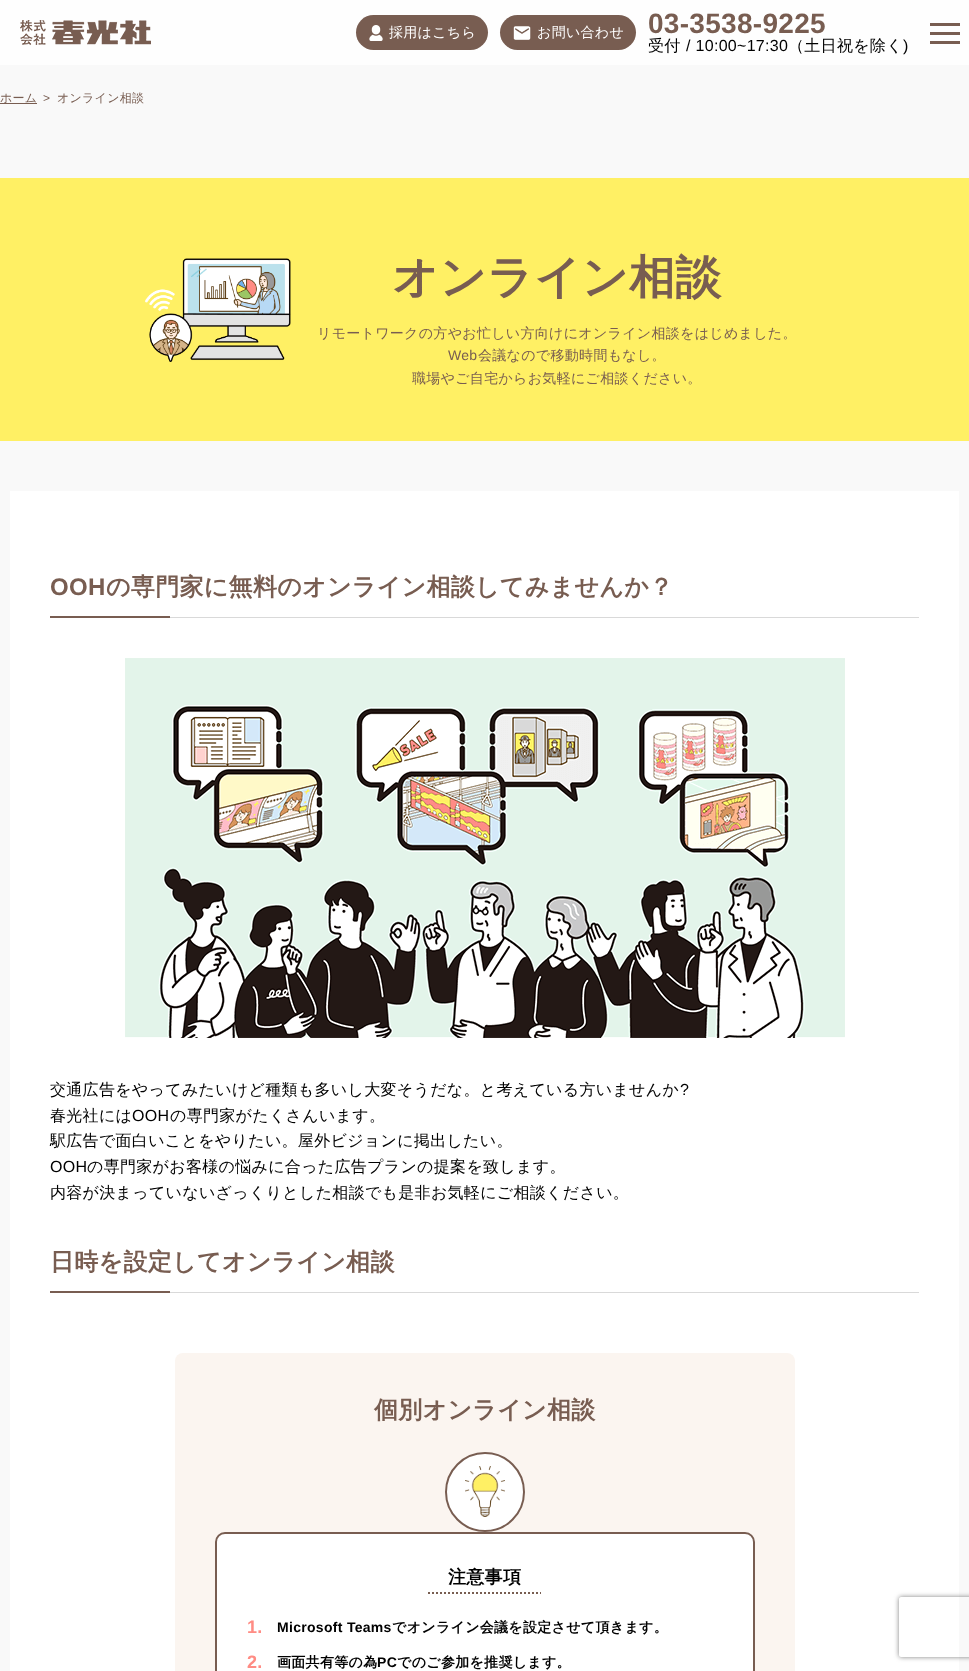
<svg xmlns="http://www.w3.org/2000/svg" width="969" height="1671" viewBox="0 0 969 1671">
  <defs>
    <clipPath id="clip1"><path d="M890 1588H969V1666H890ZM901 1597H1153C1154 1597 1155 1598 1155 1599V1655C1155 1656 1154 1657 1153 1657H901C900 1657 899 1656 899 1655V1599C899 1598 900 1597 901 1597Z" clip-rule="evenodd"/></clipPath>
  </defs>
  <rect width="100%" height="100%" fill="rgb(249,249,249)"/>
  <rect x="0" y="0" width="969" height="65" fill="rgb(254,254,254)"/>
  <image x="20" y="20" width="131" height="25" href="pic1.png"/>
  <rect x="356" y="15" width="132" height="35" rx="17.5" fill="rgb(120,93,81)"/>
  <image x="369" y="25" width="14" height="16" href="pic2.png"/>
  <text x="389" y="37" font-family="WenQuanYi Zen Hei" font-size="14" font-weight="500" letter-spacing="0.3" fill="rgb(255,255,255)">採用はこちら</text>
  <rect x="500" y="15" width="136" height="35" rx="17.5" fill="rgb(120,93,81)"/>
  <image x="513" y="26" width="18" height="14" href="pic3.png"/>
  <text x="537" y="37" font-family="WenQuanYi Zen Hei" font-size="14" font-weight="500" letter-spacing="0.3" fill="rgb(255,255,255)">お問い合わせ</text>
  <text x="648" y="33" font-family="Liberation Sans" font-size="28" font-weight="bold" letter-spacing="0.3" fill="rgb(120,93,81)">03-3538-9225</text>
  <text x="648" y="51" font-family="WenQuanYi Zen Hei" font-size="16" font-weight="500" letter-spacing="0.3" fill="rgb(0,0,0)">受付</text>
  <text x="686" y="51" font-family="Liberation Sans" font-size="16" letter-spacing="0.3" fill="rgb(0,0,0)">/ 10:00~17:30</text>
  <text x="788" y="51" font-family="WenQuanYi Zen Hei" font-size="16" font-weight="500" letter-spacing="0.3" fill="rgb(0,0,0)">（土日祝を除く</text>
  <text x="903" y="51" font-family="Liberation Sans" font-size="16" letter-spacing="0.3" fill="rgb(0,0,0)">)</text>
  <rect x="930" y="23" width="30" height="3" fill="rgb(120,93,81)"/>
  <rect x="930" y="32" width="30" height="3" fill="rgb(120,93,81)"/>
  <rect x="930" y="41" width="30" height="3" fill="rgb(120,93,81)"/>
  <rect x="0" y="103" width="37" height="1" fill="rgb(120,93,81)"/>
  <text x="0" y="102" font-family="WenQuanYi Zen Hei" font-size="12" font-weight="500" letter-spacing="0.25" fill="rgb(120,93,81)">ホーム</text>
  <text x="43" y="102" font-family="Liberation Sans" font-size="12" letter-spacing="0.25" fill="rgb(120,93,81)">&gt;</text>
  <text x="57" y="102" font-family="WenQuanYi Zen Hei" font-size="12" font-weight="500" letter-spacing="0.25" fill="rgb(120,93,81)">オンライン相談</text>
  <rect x="0" y="178" width="969" height="263" fill="rgb(255,240,100)"/>
  <image x="145" y="258" width="146" height="104" href="pic4.png"/>
  <text x="392" y="293" font-family="WenQuanYi Zen Hei" font-size="46" font-weight="bold" letter-spacing="0.3" fill="rgb(120,93,81)">オンライン相談</text>
  <text x="317" y="338" font-family="WenQuanYi Zen Hei" font-size="14" font-weight="500" letter-spacing="0.3" fill="rgb(120,93,81)">リモートワークの方やお忙しい方向けにオンライン相談をはじめました。</text>
  <text x="448" y="360" font-family="Liberation Sans" font-size="14" letter-spacing="0.3" fill="rgb(120,93,81)">Web</text>
  <g font-family="WenQuanYi Zen Hei" font-size="14" font-weight="500" letter-spacing="0.3" fill="rgb(120,93,81)">
    <text x="478" y="360">会議なので移動時間もなし。</text>
    <text x="412" y="383">職場やご自宅からお気軽にご相談ください。</text>
  </g>
  <rect x="10" y="491" width="949" height="1180" fill="rgb(255,255,255)"/>
  <rect x="170" y="617" width="749" height="1" fill="rgb(217,217,217)"/>
  <text x="50" y="595" font-family="Liberation Sans" font-size="24" font-weight="bold" letter-spacing="0.3" fill="rgb(120,93,81)">OOH</text>
  <text x="106" y="595" font-family="WenQuanYi Zen Hei" font-size="24" font-weight="bold" letter-spacing="0.3" fill="rgb(120,93,81)">の専門家に無料のオンライン相談してみませんか？</text>
  <rect x="50" y="616" width="120" height="2" fill="rgb(120,93,81)"/>
  <image x="125" y="658" width="720" height="380" href="pic5.png"/>
  <text x="50" y="1095" font-family="WenQuanYi Zen Hei" font-size="16" font-weight="500" letter-spacing="0.3" fill="rgb(0,0,0)">交通広告をやってみたいけど種類も多いし大変そうだな。と考えている方いませんか</text>
  <text x="680" y="1095" font-family="Liberation Sans" font-size="16" letter-spacing="0.3" fill="rgb(0,0,0)">?</text>
  <text x="50" y="1121" font-family="WenQuanYi Zen Hei" font-size="16" font-weight="500" letter-spacing="0.3" fill="rgb(0,0,0)">春光社には</text>
  <text x="132" y="1121" font-family="Liberation Sans" font-size="16" letter-spacing="0.3" fill="rgb(0,0,0)">OOH</text>
  <g font-family="WenQuanYi Zen Hei" font-size="16" font-weight="500" letter-spacing="0.3" fill="rgb(0,0,0)">
    <text x="170" y="1121">の専門家がたくさんいます。</text>
    <text x="50" y="1146">駅広告で面白いことをやりたい。屋外ビジョンに掲出したい。</text>
  </g>
  <text x="50" y="1172" font-family="Liberation Sans" font-size="16" letter-spacing="0.3" fill="rgb(0,0,0)">OOH</text>
  <g font-family="WenQuanYi Zen Hei" font-size="16" font-weight="500" letter-spacing="0.3" fill="rgb(0,0,0)">
    <text x="87" y="1172">の専門家がお客様の悩みに合った広告プランの提案を致します。</text>
    <text x="50" y="1198">内容が決まっていないざっくりとした相談でも是非お気軽にご相談ください。</text>
  </g>
  <rect x="170" y="1292" width="749" height="1" fill="rgb(217,217,217)"/>
  <text x="50" y="1270" font-family="WenQuanYi Zen Hei" font-size="24" font-weight="bold" letter-spacing="0.3" fill="rgb(120,93,81)">日時を設定してオンライン相談</text>
  <rect x="50" y="1291" width="120" height="2" fill="rgb(120,93,81)"/>
  <rect x="175" y="1353" width="620" height="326" rx="8" fill="rgb(251,245,240)"/>
  <text x="374" y="1418" font-family="WenQuanYi Zen Hei" font-size="24" font-weight="bold" letter-spacing="0.3" fill="rgb(120,93,81)">個別オンライン相談</text>
  <circle cx="485" cy="1492" r="39" fill="rgb(255,255,255)" stroke="rgb(120,93,81)" stroke-width="2"/>
  <image x="465" y="1466" width="40" height="51" href="pic6.png"/>
  <rect x="216" y="1533" width="538" height="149" rx="9" fill="rgb(255,255,255)" stroke="rgb(120,93,81)" stroke-width="2"/>
  <path d="M428 1593H541" fill="none" stroke="rgb(120,93,81)" stroke-width="2" stroke-dasharray="2 2"/>
  <text x="448" y="1583" font-family="WenQuanYi Zen Hei" font-size="18" font-weight="bold" letter-spacing="0.3" fill="rgb(0,0,0)">注意事項</text>
  <text x="247" y="1633" font-family="Liberation Sans" font-size="18" font-weight="bold" letter-spacing="0.3" fill="rgb(255,140,132)">1.</text>
  <text x="277" y="1632" font-family="Liberation Sans" font-size="14" font-weight="bold" letter-spacing="0.3" fill="rgb(0,0,0)">Microsoft Teams</text>
  <text x="392" y="1632" font-family="WenQuanYi Zen Hei" font-size="14" font-weight="bold" letter-spacing="0.3" fill="rgb(0,0,0)">でオンライン会議を設定させて頂きます。</text>
  <text x="247" y="1668" font-family="Liberation Sans" font-size="18" font-weight="bold" letter-spacing="0.3" fill="rgb(255,140,132)">2.</text>
  <text x="277" y="1667" font-family="WenQuanYi Zen Hei" font-size="14" font-weight="bold" letter-spacing="0.3" fill="rgb(0,0,0)">画面共有等の為</text>
  <text x="377" y="1667" font-family="Liberation Sans" font-size="14" font-weight="bold" letter-spacing="0.3" fill="rgb(0,0,0)">PC</text>
  <text x="397" y="1667" font-family="WenQuanYi Zen Hei" font-size="14" font-weight="bold" letter-spacing="0.3" fill="rgb(0,0,0)">でのご参加を推奨します。</text>
  <g clip-path="url(#clip1)">
    <rect x="899" y="1597" width="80" height="60" rx="2" fill="rgb(128,128,128)" filter="blur(2.5px)"/>
  </g>
</svg>
